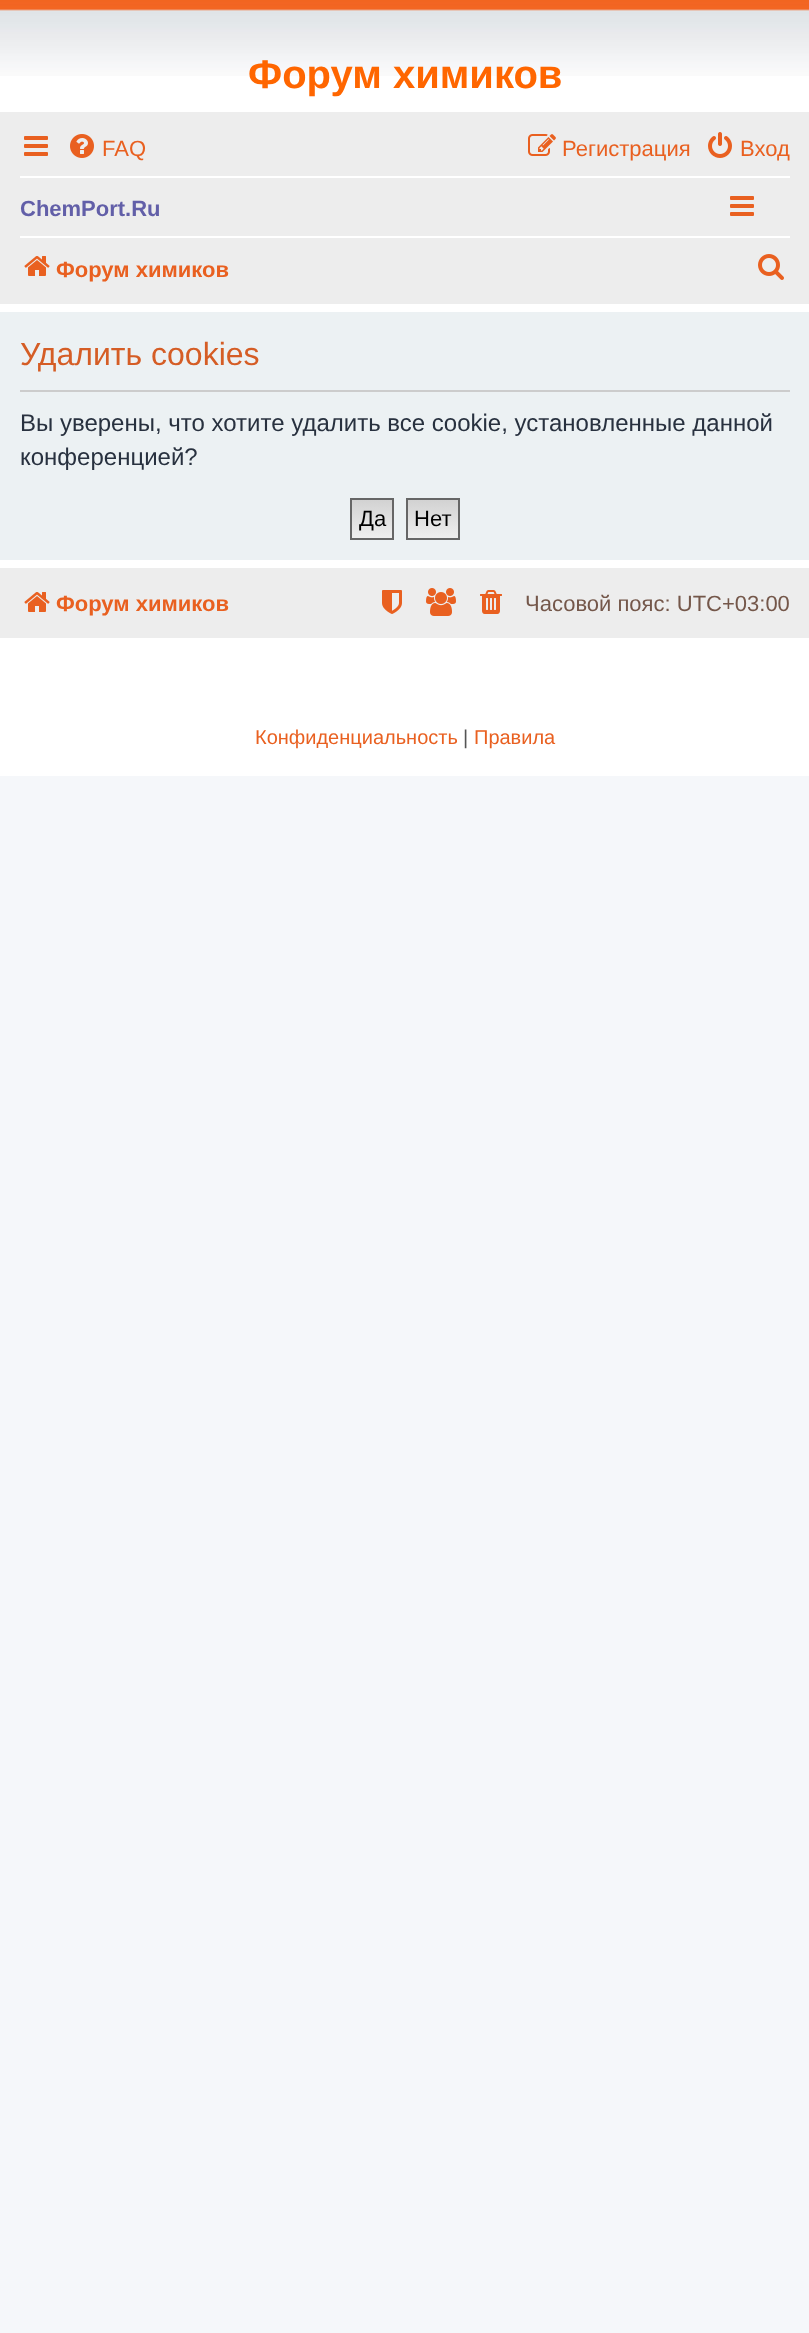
<svg xmlns="http://www.w3.org/2000/svg" width="809" height="2333" viewBox="0 0 809 2333">
  <defs>
    <linearGradient id="g1" gradientUnits="userSpaceOnUse" x1="372" y1="500" x2="372" y2="538"><stop offset="0" stop-color="rgb(210,210,210)"/><stop offset="1" stop-color="rgb(239,239,239)"/></linearGradient>
    <linearGradient id="g2" gradientUnits="userSpaceOnUse" x1="433" y1="500" x2="433" y2="538"><stop offset="0" stop-color="rgb(210,210,210)"/><stop offset="1" stop-color="rgb(239,239,239)"/></linearGradient>
  </defs>
  <rect width="100%" height="100%" fill="rgb(245,247,250)"/>
  <rect x="0" y="76" width="809" height="700" fill="rgb(255,255,255)"/>
  <image x="0" y="0" width="809" height="76" href="pic1.png"/>
  <text x="248" y="88" font-family="Liberation Sans" font-size="40" font-weight="bold" fill="rgb(255,102,0)">Форум химиков</text>
  <rect x="0" y="112" width="809" height="192" fill="rgb(237,237,237)"/>
  <image x="24" y="136" width="24" height="20" href="pic2.png"/>
  <image x="70" y="134" width="24" height="24" href="pic3.png"/>
  <text x="102" y="156" font-family="Liberation Sans" font-size="22" fill="rgb(233,96,32)">FAQ</text>
  <image x="528" y="134" width="28" height="22" href="pic4.png"/>
  <text x="562" y="156" font-family="Liberation Sans" font-size="22" fill="rgb(233,96,32)">Регистрация</text>
  <image x="708" y="132" width="24" height="26" href="pic5.png"/>
  <text x="740" y="156" font-family="Liberation Sans" font-size="22" fill="rgb(233,96,32)">Вход</text>
  <rect x="20" y="176" width="770" height="2" fill="rgb(255,255,255)"/>
  <text x="20" y="216" font-family="Liberation Sans" font-size="22" font-weight="bold" fill="rgb(98,95,168)">ChemPort.Ru</text>
  <image x="730" y="196" width="24" height="20" href="pic2.png"/>
  <rect x="20" y="236" width="770" height="2" fill="rgb(255,255,255)"/>
  <image x="24" y="256" width="26" height="20" href="pic6.png"/>
  <text x="56" y="277" font-family="Liberation Sans" font-size="22" font-weight="bold" fill="rgb(233,96,32)">Форум химиков</text>
  <image x="758" y="254" width="26" height="26" href="pic7.png"/>
  <rect x="0" y="312" width="809" height="248" fill="rgb(236,241,243)"/>
  <rect x="20" y="390" width="770" height="2" fill="rgb(204,204,204)"/>
  <text x="20" y="365" font-family="Liberation Sans" font-size="32" fill="rgb(213,93,37)">Удалить cookies</text>
  <g font-family="Liberation Sans" font-size="24" fill="rgb(40,49,63)">
    <text>
      <tspan x="20" y="431">Вы уверены, что хотите удалить все cookie, установленные данной</tspan>
      <tspan x="20" y="465">конференцией?</tspan>
    </text>
  </g>
  <rect x="352" y="500" width="40" height="38" fill="url(#g1)"/>
  <rect x="351" y="499" width="42" height="40" fill="none" stroke="rgb(102,102,102)" stroke-width="2"/>
  <text x="359" y="526" font-family="Liberation Sans" font-size="22" fill="rgb(0,0,0)">Да</text>
  <rect x="408" y="500" width="50" height="38" fill="url(#g2)"/>
  <rect x="407" y="499" width="52" height="40" fill="none" stroke="rgb(102,102,102)" stroke-width="2"/>
  <text x="414" y="526" font-family="Liberation Sans" font-size="22" fill="rgb(0,0,0)">Нет</text>
  <rect x="0" y="568" width="809" height="70" fill="rgb(237,237,237)"/>
  <image x="24" y="592" width="26" height="20" href="pic6.png"/>
  <text x="56" y="611" font-family="Liberation Sans" font-size="22" font-weight="bold" fill="rgb(233,96,32)">Форум химиков</text>
  <image x="382" y="590" width="20" height="24" href="pic8.png"/>
  <image x="426" y="588" width="30" height="28" href="pic9.png"/>
  <image x="480" y="590" width="22" height="24" href="pic10.png"/>
  <text x="525" y="611" font-family="Liberation Sans" font-size="22" fill="rgb(116,87,74)">Часовой пояс: UTC+03:00</text>
  <text x="255" y="744" font-family="Liberation Sans" font-size="20" fill="rgb(233,96,32)">Конфиденциальность</text>
  <text x="463" y="744" font-family="Liberation Sans" font-size="20" fill="rgb(85,85,85)">|</text>
  <text x="474" y="744" font-family="Liberation Sans" font-size="20" fill="rgb(233,96,32)">Правила</text>
</svg>
